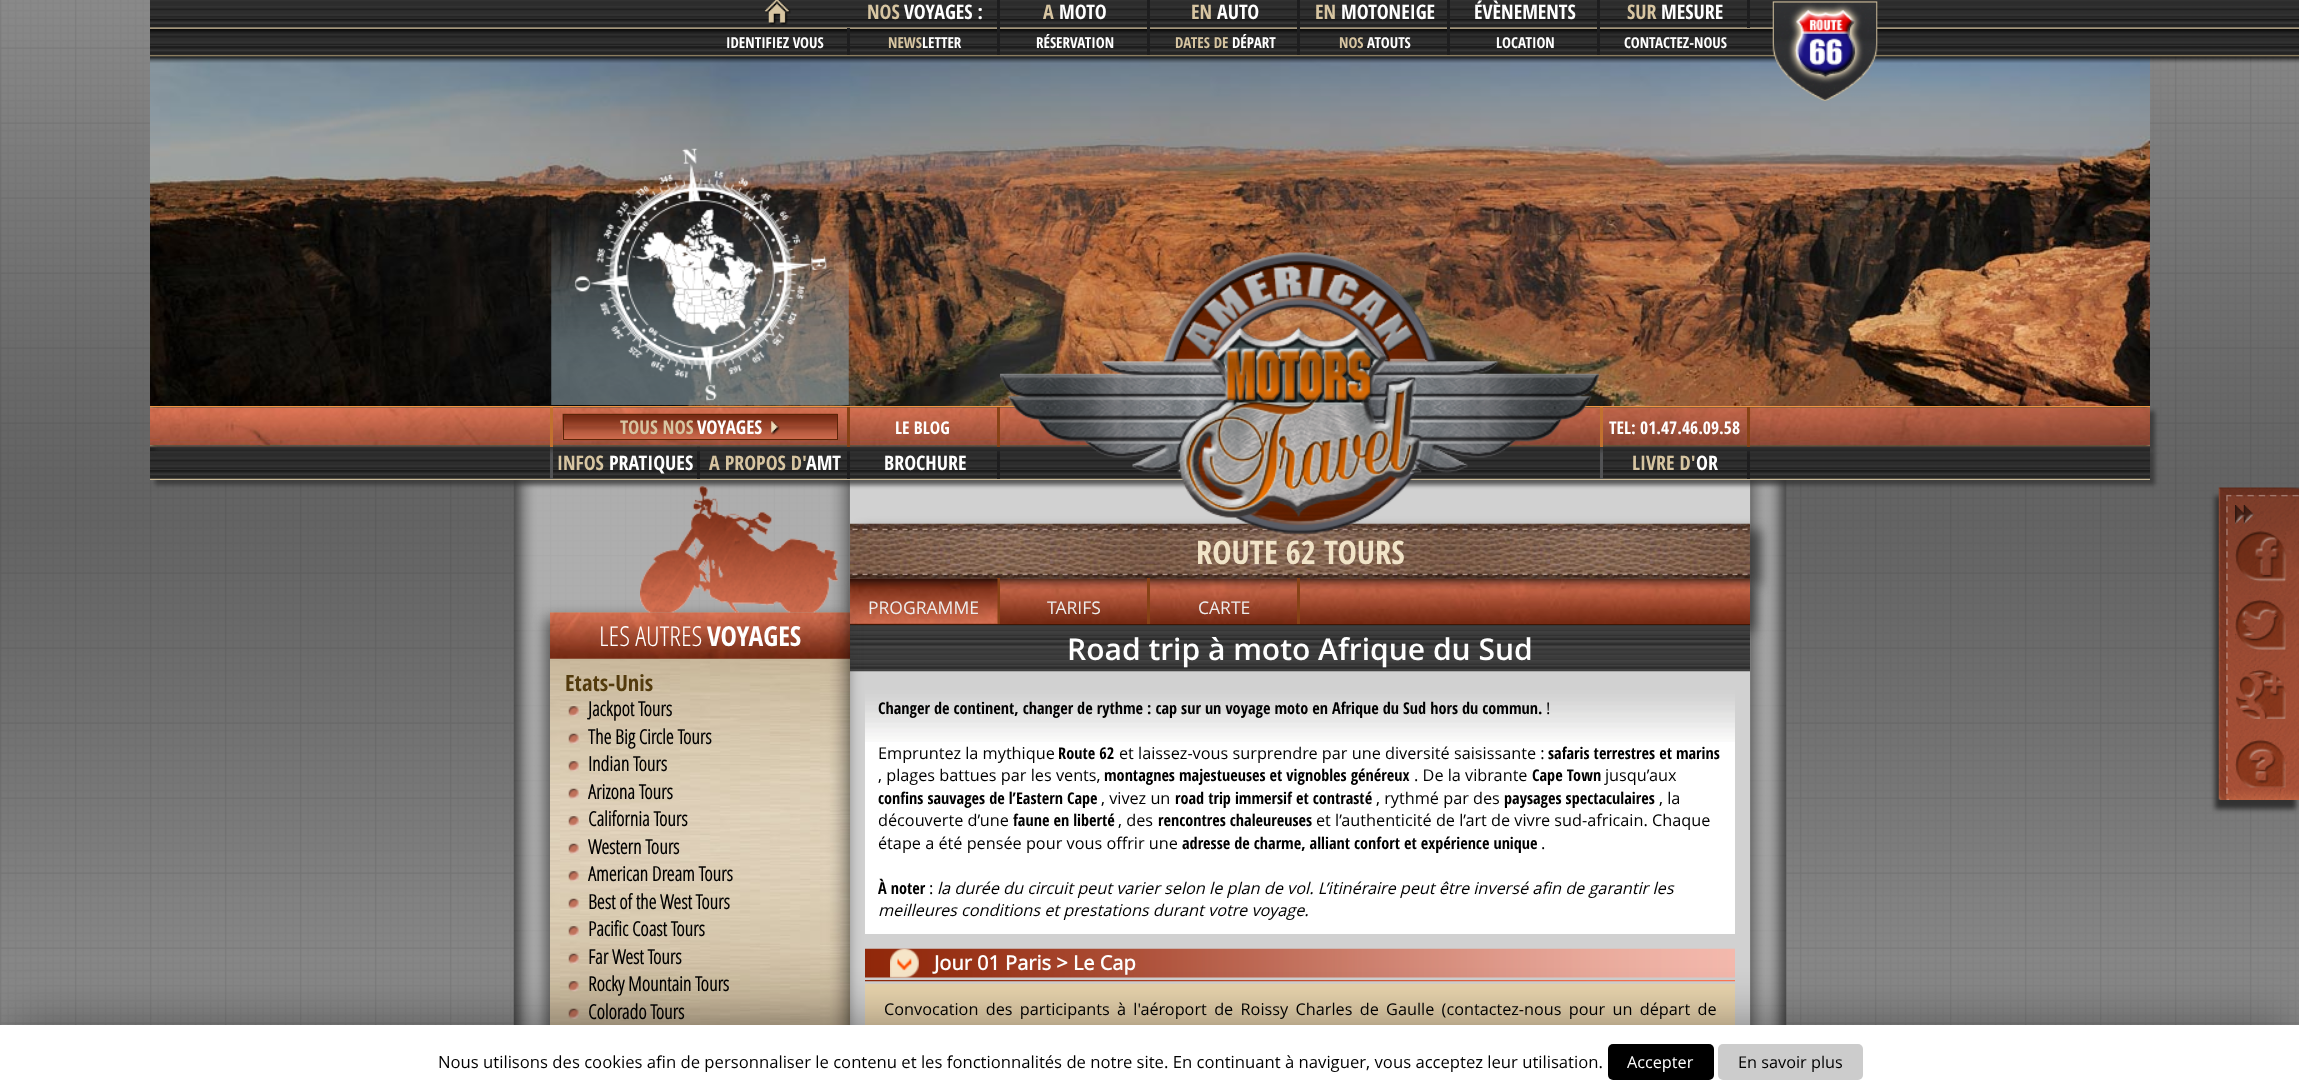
<svg xmlns="http://www.w3.org/2000/svg" width="2299" height="1092" viewBox="0 0 2299 1092">
  <rect width="100%" height="100%" fill="rgb(255,255,255)"/>
  <image x="0" y="0" width="2299" height="1025" href="pic1.png"/>
  <image x="150" y="56" width="2000" height="350" href="pic5.png"/>
  <image x="150" y="0" width="2149" height="63" href="pic2.png"/>
  <image x="764" y="0" width="27" height="25" href="pic3.png"/>
  <rect x="997" y="0" width="3" height="55" fill="rgb(30,30,31)"/>
  <text x="867" y="19" font-family="Open Sans Condensed" font-size="20" font-weight="bold" fill="rgb(215,197,161)">NOS</text>
  <text x="904" y="19" font-family="Open Sans Condensed" font-size="20" font-weight="bold" fill="rgb(255,255,255)">VOYAGES :</text>
  <rect x="1147" y="0" width="3" height="55" fill="rgb(30,30,31)"/>
  <text x="1043" y="19" font-family="Open Sans Condensed" font-size="20" font-weight="bold" fill="rgb(215,197,161)">A</text>
  <text x="1059" y="19" font-family="Open Sans Condensed" font-size="20" font-weight="bold" fill="rgb(255,255,255)">MOTO</text>
  <rect x="1297" y="0" width="3" height="55" fill="rgb(30,30,31)"/>
  <text x="1191" y="19" font-family="Open Sans Condensed" font-size="20" font-weight="bold" fill="rgb(215,197,161)">EN</text>
  <text x="1217" y="19" font-family="Open Sans Condensed" font-size="20" font-weight="bold" fill="rgb(255,255,255)">AUTO</text>
  <rect x="1447" y="0" width="3" height="55" fill="rgb(30,30,31)"/>
  <text x="1315" y="19" font-family="Open Sans Condensed" font-size="20" font-weight="bold" fill="rgb(215,197,161)">EN</text>
  <text x="1341" y="19" font-family="Open Sans Condensed" font-size="20" font-weight="bold" fill="rgb(255,255,255)">MOTONEIGE</text>
  <rect x="1597" y="0" width="3" height="55" fill="rgb(30,30,31)"/>
  <text x="1474" y="19" font-family="Open Sans Condensed" font-size="20" font-weight="bold" fill="rgb(255,255,255)">ÉVÈNEMENTS</text>
  <rect x="1747" y="0" width="3" height="28" fill="rgb(30,30,31)"/>
  <text x="1627" y="19" font-family="Open Sans Condensed" font-size="20" font-weight="bold" fill="rgb(215,197,161)">SUR</text>
  <text x="1661" y="19" font-family="Open Sans Condensed" font-size="20" font-weight="bold" fill="rgb(255,255,255)">MESURE</text>
  <image x="1772" y="1" width="106" height="100" href="pic4.png"/>
  <rect x="847" y="28" width="3" height="27" fill="rgb(30,30,31)"/>
  <text x="726" y="48" font-family="Open Sans Condensed" font-size="15" font-weight="bold" fill="rgb(255,255,255)">IDENTIFIEZ VOUS</text>
  <text x="888" y="48" font-family="Open Sans Condensed" font-size="15" font-weight="bold" fill="rgb(215,197,161)">NEWS</text>
  <g font-family="Open Sans Condensed" font-size="15" font-weight="bold" fill="rgb(255,255,255)">
    <text x="922" y="48">LETTER</text>
    <text x="1036" y="48">RÉSERVATION</text>
  </g>
  <text x="1175" y="48" font-family="Open Sans Condensed" font-size="15" font-weight="bold" fill="rgb(215,197,161)">DATES DE</text>
  <text x="1232" y="48" font-family="Open Sans Condensed" font-size="15" font-weight="bold" fill="rgb(255,255,255)">DÉPART</text>
  <text x="1339" y="48" font-family="Open Sans Condensed" font-size="15" font-weight="bold" fill="rgb(215,197,161)">NOS</text>
  <g font-family="Open Sans Condensed" font-size="15" font-weight="bold" fill="rgb(255,255,255)">
    <text x="1367" y="48">ATOUTS</text>
    <text x="1496" y="48">LOCATION</text>
    <text x="1624" y="48">CONTACTEZ-NOUS</text>
  </g>
  <image x="551" y="148" width="298" height="257" href="pic6.png"/>
  <image x="513" y="480" width="1274" height="545" href="pic12.png"/>
  <rect x="850" y="480" width="900" height="545" fill="rgb(209,209,209)"/>
  <rect x="155" y="451" width="2000" height="34" fill="rgba(50,50,50,0.75)" filter="blur(2px)"/>
  <image x="150" y="446" width="2000" height="34" href="pic11.png"/>
  <rect x="697" y="446" width="3" height="33" fill="rgb(30,30,31)"/>
  <rect x="550" y="446" width="3" height="33" fill="rgb(82,83,85)"/>
  <rect x="847" y="446" width="3" height="33" fill="rgb(30,30,31)"/>
  <rect x="997" y="446" width="3" height="33" fill="rgb(30,30,31)"/>
  <rect x="1747" y="446" width="3" height="33" fill="rgb(30,30,31)"/>
  <rect x="1600" y="446" width="3" height="33" fill="rgb(82,83,85)"/>
  <rect x="155" y="411" width="2000" height="40" fill="rgba(50,50,50,0.75)" filter="blur(2px)"/>
  <image x="150" y="407" width="2000" height="40" href="pic8.png"/>
  <rect x="150" y="406" width="2000" height="1" fill="rgb(238,149,65)"/>
  <rect x="861" y="530" width="900" height="55" fill="rgba(50,50,50,0.75)" filter="blur(6px)"/>
  <image x="850" y="523" width="900" height="56" href="pic28.png"/>
  <image x="1000" y="252" width="599" height="282" href="pic7.png"/>
  <rect x="1747" y="407" width="3" height="40" fill="rgb(134,66,22)"/>
  <rect x="550" y="407" width="3" height="40" fill="rgb(193,113,47)"/>
  <rect x="847" y="407" width="3" height="40" fill="rgb(134,66,22)"/>
  <image x="562" y="413" width="276" height="27" href="pic9.png"/>
  <rect x="563.5" y="414.5" width="274" height="25" fill="none" stroke="rgb(90,36,7)"/>
  <text x="620" y="434" font-family="Open Sans Condensed" font-size="19" font-weight="bold" fill="rgb(215,197,161)">TOUS NOS</text>
  <text x="697" y="434" font-family="Open Sans Condensed" font-size="19" font-weight="bold" fill="rgb(255,255,255)">VOYAGES</text>
  <image x="771" y="421" width="9" height="14" href="pic10.png"/>
  <rect x="997" y="407" width="3" height="40" fill="rgb(134,66,22)"/>
  <text x="895" y="434" font-family="Open Sans Condensed" font-size="17.5" font-weight="bold" fill="rgb(255,255,255)">LE BLOG</text>
  <rect x="1600" y="407" width="3" height="40" fill="rgb(193,113,47)"/>
  <text x="1609" y="434" font-family="Open Sans Condensed" font-size="17.5" font-weight="bold" fill="rgb(255,255,255)">TEL: 01.47.46.09.58</text>
  <text x="557" y="470" font-family="Open Sans Condensed" font-size="20" font-weight="bold" fill="rgb(215,197,161)">INFOS</text>
  <text x="609" y="470" font-family="Open Sans Condensed" font-size="20" font-weight="bold" fill="rgb(255,255,255)">PRATIQUES</text>
  <text x="709" y="470" font-family="Open Sans Condensed" font-size="20" font-weight="bold" fill="rgb(215,197,161)">A PROPOS D'</text>
  <g font-family="Open Sans Condensed" font-size="20" font-weight="bold" fill="rgb(255,255,255)">
    <text x="806" y="470">AMT</text>
    <text x="884" y="470">BROCHURE</text>
  </g>
  <text x="1632" y="470" font-family="Open Sans Condensed" font-size="20" font-weight="bold" fill="rgb(215,197,161)">LIVRE D'</text>
  <text x="1696" y="470" font-family="Open Sans Condensed" font-size="20" font-weight="bold" fill="rgb(255,255,255)">OR</text>
  <rect x="855" y="585" width="900" height="46" fill="rgba(50,50,50,0.75)" filter="blur(6px)"/>
  <image x="850" y="578" width="900" height="46" href="pic29.png"/>
  <rect x="850" y="624" width="900" height="1" fill="rgb(64,23,5)"/>
  <rect x="997" y="578" width="3" height="46" fill="rgb(134,66,22)"/>
  <image x="850" y="578" width="148" height="46" href="pic30.png"/>
  <image x="850" y="625" width="900" height="47" href="pic31.png"/>
  <rect x="865" y="742" width="870" height="192" fill="rgb(255,255,255)"/>
  <image x="865" y="690" width="870" height="52" href="pic32.png"/>
  <image x="865" y="948" width="870" height="30" href="pic33.png"/>
  <image x="865" y="980" width="870" height="2" href="pic35.png"/>
  <image x="865" y="983" width="870" height="42" href="pic36.png"/>
  <rect x="546" y="618" width="300" height="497" fill="rgba(50,50,50,0.75)" filter="blur(7.5px)"/>
  <image x="550" y="612" width="300" height="413" href="pic14.png"/>
  <image x="550" y="612" width="300" height="47" href="pic15.png"/>
  <image x="640" y="486" width="198" height="127" href="pic13.png"/>
  <text x="599" y="646" font-family="Open Sans" font-size="27.5" font-weight="300" fill="rgb(255,255,255)">LES AUTRES</text>
  <text x="707" y="646" font-family="Open Sans Condensed" font-size="27.5" font-weight="bold" fill="rgb(255,255,255)">VOYAGES</text>
  <text x="565" y="691" font-family="Open Sans Condensed" font-size="22.5" font-weight="bold" fill="rgb(83,59,13)">Etats-Unis</text>
  <image x="568" y="706" width="11" height="11" href="pic16.png"/>
  <text x="588" y="716" font-family="'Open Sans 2'" font-size="20" font-weight="bold" fill="rgb(0,0,0)">Jackpot Tours</text>
  <image x="568" y="733" width="11" height="11" href="pic17.png"/>
  <text x="588" y="744" font-family="'Open Sans 2'" font-size="20" font-weight="bold" fill="rgb(0,0,0)">The Big Circle Tours</text>
  <image x="568" y="761" width="11" height="11" href="pic18.png"/>
  <text x="588" y="771" font-family="'Open Sans 2'" font-size="20" font-weight="bold" fill="rgb(0,0,0)">Indian Tours</text>
  <image x="568" y="788" width="11" height="11" href="pic19.png"/>
  <text x="588" y="799" font-family="'Open Sans 2'" font-size="20" font-weight="bold" fill="rgb(0,0,0)">Arizona Tours</text>
  <image x="568" y="816" width="11" height="11" href="pic20.png"/>
  <text x="588" y="826" font-family="'Open Sans 2'" font-size="20" font-weight="bold" fill="rgb(0,0,0)">California Tours</text>
  <image x="568" y="843" width="11" height="11" href="pic21.png"/>
  <text x="588" y="854" font-family="'Open Sans 2'" font-size="20" font-weight="bold" fill="rgb(0,0,0)">Western Tours</text>
  <image x="568" y="871" width="11" height="11" href="pic22.png"/>
  <text x="588" y="881" font-family="'Open Sans 2'" font-size="20" font-weight="bold" fill="rgb(0,0,0)">American Dream Tours</text>
  <image x="568" y="898" width="11" height="11" href="pic23.png"/>
  <text x="588" y="909" font-family="'Open Sans 2'" font-size="20" font-weight="bold" fill="rgb(0,0,0)">Best of the West Tours</text>
  <image x="568" y="926" width="11" height="11" href="pic24.png"/>
  <text x="588" y="936" font-family="'Open Sans 2'" font-size="20" font-weight="bold" fill="rgb(0,0,0)">Pacific Coast Tours</text>
  <image x="568" y="953" width="11" height="11" href="pic25.png"/>
  <text x="588" y="964" font-family="'Open Sans 2'" font-size="20" font-weight="bold" fill="rgb(0,0,0)">Far West Tours</text>
  <image x="568" y="981" width="11" height="11" href="pic26.png"/>
  <text x="588" y="991" font-family="'Open Sans 2'" font-size="20" font-weight="bold" fill="rgb(0,0,0)">Rocky Mountain Tours</text>
  <image x="568" y="1008" width="11" height="11" href="pic27.png"/>
  <text x="588" y="1019" font-family="'Open Sans 2'" font-size="20" font-weight="bold" fill="rgb(0,0,0)">Colorado Tours</text>
  <text x="1196" y="564" font-family="Open Sans Condensed" font-size="32.5" font-weight="bold" fill="rgb(241,228,200)">ROUTE 62 TOURS</text>
  <text x="868" y="614" font-family="Open Sans" font-size="17.5" fill="rgb(237,237,237)">PROGRAMME</text>
  <rect x="1147" y="578" width="3" height="46" fill="rgb(134,66,22)"/>
  <text x="1047" y="614" font-family="Open Sans" font-size="17.5" fill="rgb(237,237,237)">TARIFS</text>
  <rect x="1297" y="578" width="3" height="46" fill="rgb(134,66,22)"/>
  <text x="1198" y="614" font-family="Open Sans" font-size="17.5" fill="rgb(237,237,237)">CARTE</text>
  <text x="1067" y="660" font-family="Open Sans" font-size="30" font-weight="600" fill="rgb(255,255,255)">Road trip à moto Afrique du Sud</text>
  <text x="878" y="714" font-family="Open Sans Condensed" font-size="16.25" font-weight="bold" fill="rgb(0,0,0)">Changer de continent, changer de rythme : cap sur un voyage moto en Afrique du Sud hors du commun.</text>
  <g font-family="Open Sans" font-size="16.25" fill="rgb(0,0,0)">
    <text x="1546" y="714">!</text>
    <text x="878" y="759">Empruntez la mythique</text>
  </g>
  <text x="1058" y="759" font-family="Open Sans Condensed" font-size="16.25" font-weight="bold" fill="rgb(0,0,0)">Route 62</text>
  <text x="1119" y="759" font-family="Open Sans" font-size="16.25" fill="rgb(0,0,0)">et laissez-vous surprendre par une diversité saisissante :</text>
  <text x="1548" y="759" font-family="Open Sans Condensed" font-size="16.25" font-weight="bold" fill="rgb(0,0,0)">safaris terrestres et marins</text>
  <text x="878" y="781" font-family="Open Sans" font-size="16.25" fill="rgb(0,0,0)">, plages battues par les vents,</text>
  <text x="1104" y="781" font-family="Open Sans Condensed" font-size="16.25" font-weight="bold" fill="rgb(0,0,0)">montagnes majestueuses et vignobles généreux</text>
  <text x="1414" y="781" font-family="Open Sans" font-size="16.25" fill="rgb(0,0,0)">. De la vibrante</text>
  <text x="1532" y="781" font-family="Open Sans Condensed" font-size="16.25" font-weight="bold" fill="rgb(0,0,0)">Cape Town</text>
  <text x="1605" y="781" font-family="Open Sans" font-size="16.25" fill="rgb(0,0,0)">jusqu’aux</text>
  <text x="878" y="804" font-family="Open Sans Condensed" font-size="16.25" font-weight="bold" fill="rgb(0,0,0)">confins sauvages de l’Eastern Cape</text>
  <text x="1101" y="804" font-family="Open Sans" font-size="16.25" fill="rgb(0,0,0)">, vivez un</text>
  <text x="1175" y="804" font-family="Open Sans Condensed" font-size="16.25" font-weight="bold" fill="rgb(0,0,0)">road trip immersif et contrasté</text>
  <text x="1376" y="804" font-family="Open Sans" font-size="16.25" fill="rgb(0,0,0)">, rythmé par des</text>
  <text x="1504" y="804" font-family="Open Sans Condensed" font-size="16.25" font-weight="bold" fill="rgb(0,0,0)">paysages spectaculaires</text>
  <g font-family="Open Sans" font-size="16.25" fill="rgb(0,0,0)">
    <text x="1659" y="804">, la</text>
    <text x="878" y="826">découverte d’une</text>
  </g>
  <text x="1013" y="826" font-family="Open Sans Condensed" font-size="16.25" font-weight="bold" fill="rgb(0,0,0)">faune en liberté</text>
  <text x="1118" y="826" font-family="Open Sans" font-size="16.25" fill="rgb(0,0,0)">, des</text>
  <text x="1158" y="826" font-family="Open Sans Condensed" font-size="16.25" font-weight="bold" fill="rgb(0,0,0)">rencontres chaleureuses</text>
  <g font-family="Open Sans" font-size="16.25" fill="rgb(0,0,0)">
    <text x="1316" y="826">et l’authenticité de l’art de vivre sud-africain. Chaque</text>
    <text x="878" y="849">étape a été pensée pour vous offrir une</text>
  </g>
  <text x="1182" y="849" font-family="Open Sans Condensed" font-size="16.25" font-weight="bold" fill="rgb(0,0,0)">adresse de charme, alliant confort et expérience unique</text>
  <text x="1541" y="849" font-family="Open Sans" font-size="16.25" fill="rgb(0,0,0)">.</text>
  <text x="878" y="894" font-family="Open Sans Condensed" font-size="16.25" font-weight="bold" fill="rgb(0,0,0)">À noter</text>
  <text x="929" y="894" font-family="Open Sans" font-size="16.25" fill="rgb(0,0,0)">:</text>
  <g font-family="Open Sans" font-size="16.25" font-style="italic" fill="rgb(0,0,0)">
    <text x="937" y="894">la durée du circuit peut varier selon le plan de vol. L’itinéraire peut être inversé afin de garantir les</text>
    <text x="878" y="916">meilleures conditions et prestations durant votre voyage.</text>
  </g>
  <image x="890" y="948" width="29" height="30" href="pic34.png"/>
  <text x="934" y="970" font-family="Open Sans" font-size="20" font-weight="bold" fill="rgb(255,255,255)">Jour 01 Paris &gt; Le Cap</text>
  <text x="884" y="1015" word-spacing="3.1" font-family="Open Sans" font-size="16.25" fill="rgb(0,0,0)">Convocation des participants à l'aéroport de Roissy Charles de Gaulle (contactez-nous pour un départ de</text>
  <rect x="2215" y="496" width="81" height="313" fill="rgb(50,50,50)" filter="blur(2.5px)"/>
  <image x="2218" y="487" width="81" height="313" href="pic37.png"/>
  <image x="2235" y="505" width="19" height="19" href="pic38.png"/>
  <image x="2235" y="530" width="52" height="52" href="pic39.png"/>
  <image x="2235" y="599" width="51" height="51" href="pic40.png"/>
  <image x="2235" y="667" width="51" height="52" href="pic41.png"/>
  <image x="2235" y="736" width="51" height="52" href="pic42.png"/>
  <rect x="0" y="1031" width="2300" height="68" fill="rgba(0,0,0,0.5)" filter="blur(31px)"/>
  <rect x="0" y="1025" width="2299" height="67" fill="rgb(255,255,255)"/>
  <text x="438" y="1068" font-family="Open Sans" font-size="16.67" fill="rgb(0,0,0)">Nous utilisons des cookies afin de personnaliser le contenu et les fonctionnalités de notre site. En continuant à naviguer, vous acceptez leur utilisation.</text>
  <rect x="1608" y="1044" width="106" height="36" rx="5" fill="rgb(0,0,0)"/>
  <text x="1627" y="1068" font-family="Open Sans" font-size="16.25" fill="rgb(255,255,255)">Accepter</text>
  <rect x="1718" y="1044" width="145" height="36" rx="5" fill="rgb(204,204,204)"/>
  <text x="1738" y="1068" font-family="Open Sans" font-size="16.25" fill="rgb(0,0,0)">En savoir plus</text>
</svg>
